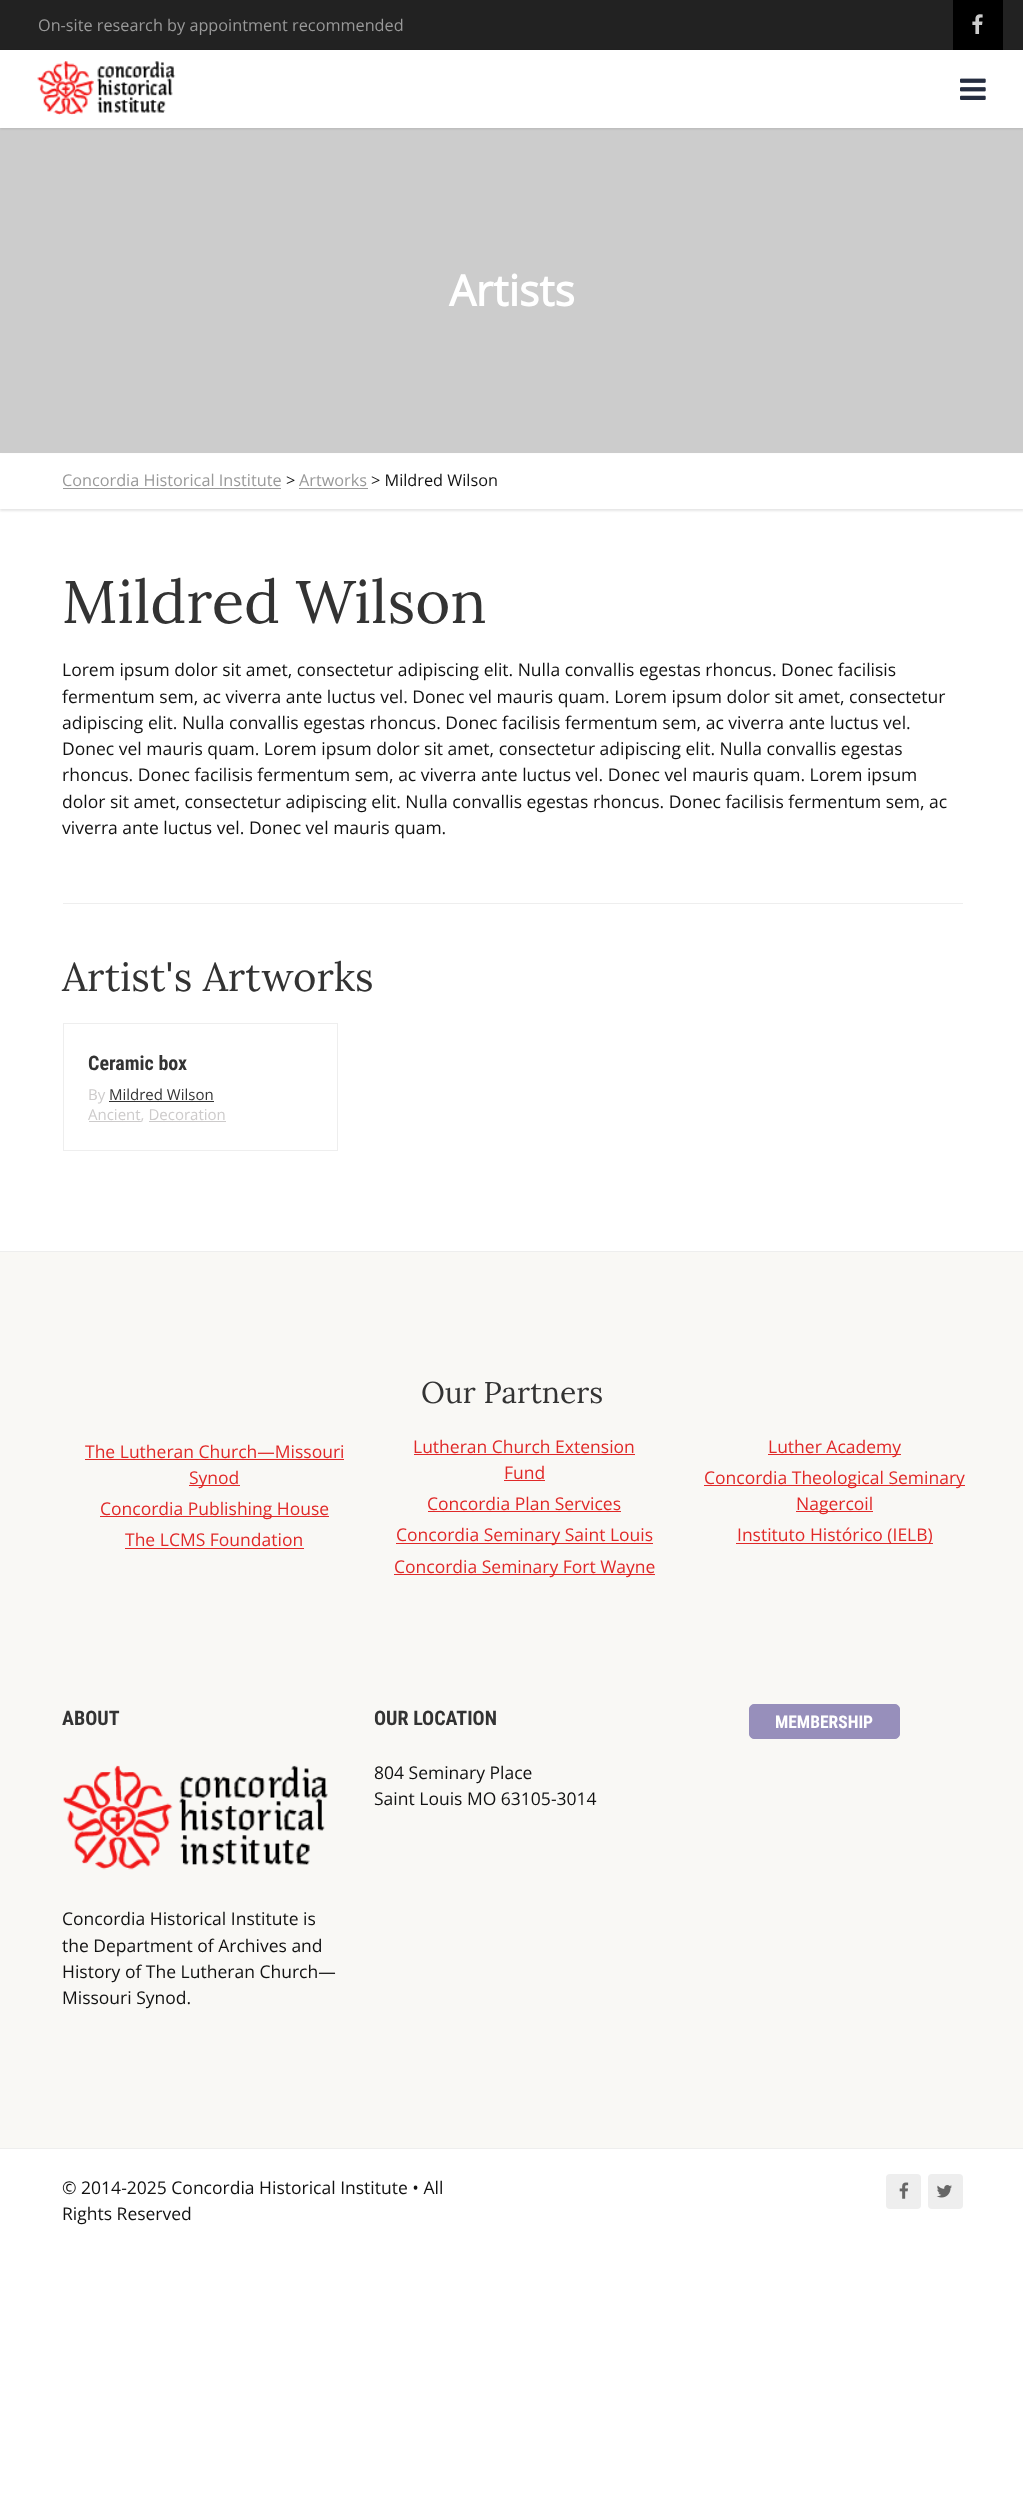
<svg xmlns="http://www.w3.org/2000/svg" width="1023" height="2502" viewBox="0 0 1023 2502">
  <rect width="100%" height="100%" fill="rgb(255,255,255)"/>
  <rect x="0" y="0" width="1023" height="50" fill="rgb(34,34,34)"/>
  <text x="38" y="31" font-family="Open Sans" font-size="16.25" fill="rgb(153,153,153)">On-site research by appointment recommended</text>
  <rect x="953" y="0" width="50" height="50" fill="rgb(0,0,0)"/>
  <image x="972" y="14" width="11" height="20" href="pic1.png"/>
  <rect x="0" y="455" width="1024" height="56" fill="rgb(230,230,230)" filter="blur(1px)"/>
  <rect x="0" y="128" width="1023" height="325" fill="rgb(204,204,204)"/>
  <rect x="0" y="51" width="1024" height="78" fill="rgba(0,0,0,0.1)" filter="blur(1px)"/>
  <rect x="0" y="50" width="1023" height="78" fill="rgb(255,255,255)"/>
  <image x="37" y="61" width="139" height="54" href="pic2.png"/>
  <image x="960" y="78" width="26" height="22" href="pic3.png"/>
  <text x="449" y="306" font-family="Open Sans" font-size="42.5" font-weight="bold" fill="rgb(255,255,255)">Artists</text>
  <rect x="0" y="454" width="1023" height="55" fill="rgb(255,255,255)"/>
  <text x="62" y="486" font-family="Open Sans" font-size="16.25" fill="rgb(153,153,153)">Concordia Historical Institute</text>
  <rect x="63" y="488" width="218" height="1" fill="rgb(153,153,153)"/>
  <text x="286" y="486" font-family="Open Sans" font-size="16.25" fill="rgb(17,17,17)">&gt;</text>
  <text x="299" y="486" font-family="Open Sans" font-size="16.25" fill="rgb(153,153,153)">Artworks</text>
  <rect x="299" y="488" width="69" height="1" fill="rgb(153,153,153)"/>
  <text x="371" y="486" font-family="Open Sans" font-size="16.25" fill="rgb(17,17,17)">&gt; Mildred Wilson</text>
  <text x="62" y="623" font-family="Lora" font-size="60" fill="rgb(51,51,51)">Mildred Wilson</text>
  <g font-family="Open Sans" font-size="17.5" fill="rgb(17,17,17)">
    <text>
      <tspan x="62" y="676">Lorem ipsum dolor sit amet, consectetur adipiscing elit. Nulla convallis egestas rhoncus. Donec facilisis</tspan>
      <tspan x="62" y="703">fermentum sem, ac viverra ante luctus vel. Donec vel mauris quam. Lorem ipsum dolor sit amet, consectetur</tspan>
      <tspan x="62" y="729">adipiscing elit. Nulla convallis egestas rhoncus. Donec facilisis fermentum sem, ac viverra ante luctus vel.</tspan>
      <tspan x="62" y="755">Donec vel mauris quam. Lorem ipsum dolor sit amet, consectetur adipiscing elit. Nulla convallis egestas</tspan>
      <tspan x="62" y="781">rhoncus. Donec facilisis fermentum sem, ac viverra ante luctus vel. Donec vel mauris quam. Lorem ipsum</tspan>
      <tspan x="62" y="808">dolor sit amet, consectetur adipiscing elit. Nulla convallis egestas rhoncus. Donec facilisis fermentum sem, ac</tspan>
      <tspan x="62" y="834">viverra ante luctus vel. Donec vel mauris quam.</tspan>
    </text>
  </g>
  <rect x="63" y="903" width="900" height="1" fill="rgb(238,238,238)"/>
  <text x="62" y="991" font-family="Lora" font-size="40" fill="rgb(51,51,51)">Artist's Artworks</text>
  <rect x="63.5" y="1023.5" width="274" height="127" fill="none" stroke="rgb(238,238,238)"/>
  <text x="88" y="1070" font-family="Roboto Condensed" font-size="20" font-weight="bold" fill="rgb(51,51,51)">Ceramic box</text>
  <text x="88" y="1100" font-family="Open Sans" font-size="15" fill="rgb(205,203,203)">By</text>
  <text x="109" y="1100" font-family="Open Sans" font-size="15" fill="rgb(51,51,51)">Mildred Wilson</text>
  <rect x="109" y="1101" width="105" height="1" fill="rgb(51,51,51)"/>
  <rect x="89" y="1121" width="52" height="1" fill="rgb(205,203,203)"/>
  <text x="88" y="1120" font-family="Open Sans" font-size="15" fill="rgb(205,203,203)">Ancient, Decoration</text>
  <rect x="149" y="1121" width="77" height="1" fill="rgb(205,203,203)"/>
  <rect x="0" y="1252" width="1023" height="896" fill="rgb(249,248,245)"/>
  <rect x="0" y="1251" width="1023" height="1" fill="rgb(238,238,238)"/>
  <text x="421" y="1403" font-family="Lora" font-size="30" fill="rgb(51,51,51)">Our Partners</text>
  <text x="85" y="1458" font-family="Open Sans" font-size="17.5" fill="rgb(224,41,40)">The Lutheran Church—Missouri</text>
  <rect x="85" y="1459" width="259" height="1" fill="rgb(224,41,40)"/>
  <rect x="189" y="1485" width="51" height="1" fill="rgb(224,41,40)"/>
  <g font-family="Open Sans" font-size="17.5" fill="rgb(224,41,40)">
    <text x="189" y="1484">Synod</text>
    <text x="413" y="1453">Lutheran Church Extension</text>
  </g>
  <rect x="414" y="1454" width="221" height="1" fill="rgb(224,41,40)"/>
  <text x="504" y="1479" font-family="Open Sans" font-size="17.5" fill="rgb(224,41,40)">Fund</text>
  <rect x="504" y="1480" width="41" height="1" fill="rgb(224,41,40)"/>
  <rect x="768" y="1454" width="133" height="1" fill="rgb(224,41,40)"/>
  <text x="768" y="1453" font-family="Open Sans" font-size="17.5" fill="rgb(224,41,40)">Luther Academy</text>
  <rect x="100" y="1516" width="229" height="1" fill="rgb(224,41,40)"/>
  <g font-family="Open Sans" font-size="17.5" fill="rgb(224,41,40)">
    <text x="100" y="1515">Concordia Publishing House</text>
    <text x="427" y="1510">Concordia Plan Services</text>
  </g>
  <rect x="428" y="1511" width="193" height="1" fill="rgb(224,41,40)"/>
  <rect x="704" y="1485" width="261" height="1" fill="rgb(224,41,40)"/>
  <text x="704" y="1484" font-family="Open Sans" font-size="17.5" fill="rgb(224,41,40)">Concordia Theological Seminary</text>
  <rect x="796" y="1511" width="77" height="1" fill="rgb(224,41,40)"/>
  <g font-family="Open Sans" font-size="17.5" fill="rgb(224,41,40)">
    <text x="796" y="1510">Nagercoil</text>
    <text x="125" y="1546">The LCMS Foundation</text>
  </g>
  <rect x="125" y="1548" width="179" height="1" fill="rgb(224,41,40)"/>
  <rect x="396" y="1543" width="257" height="1" fill="rgb(224,41,40)"/>
  <text x="396" y="1541" font-family="Open Sans" font-size="17.5" fill="rgb(224,41,40)">Concordia Seminary Saint Louis</text>
  <rect x="736" y="1543" width="197" height="1" fill="rgb(224,41,40)"/>
  <text x="737" y="1541" font-family="Open Sans" font-size="17.5" fill="rgb(224,41,40)">Instituto Histórico (IELB)</text>
  <rect x="394" y="1574" width="261" height="1" fill="rgb(224,41,40)"/>
  <text x="394" y="1573" font-family="Open Sans" font-size="17.5" fill="rgb(224,41,40)">Concordia Seminary Fort Wayne</text>
  <text x="62" y="1725" font-family="Roboto Condensed" font-size="20" font-weight="bold" fill="rgb(51,51,51)">ABOUT</text>
  <image x="63" y="1765" width="265" height="105" href="pic4.png"/>
  <g font-family="Open Sans" font-size="17.5" fill="rgb(17,17,17)">
    <text>
      <tspan x="62" y="1925">Concordia Historical Institute is</tspan>
      <tspan x="62" y="1952">the Department of Archives and</tspan>
      <tspan x="62" y="1978">History of The Lutheran Church—</tspan>
      <tspan x="62" y="2004">Missouri Synod.</tspan>
    </text>
  </g>
  <text x="374" y="1725" font-family="Roboto Condensed" font-size="20" font-weight="bold" fill="rgb(51,51,51)">OUR LOCATION</text>
  <g font-family="Open Sans" font-size="17.5" fill="rgb(17,17,17)">
    <text>
      <tspan x="374" y="1779">804 Seminary Place</tspan>
      <tspan x="374" y="1805">Saint Louis MO 63105-3014</tspan>
    </text>
  </g>
  <rect x="749.5" y="1704.5" width="150" height="34" rx="4.5" fill="rgb(151,143,187)" stroke="rgb(151,143,187)"/>
  <text x="775" y="1728" font-family="Roboto Condensed" font-size="17.5" font-weight="bold" fill="rgb(255,255,255)">MEMBERSHIP</text>
  <rect x="0" y="2148" width="1023" height="1" fill="rgb(238,238,238)"/>
  <g font-family="Open Sans" font-size="17.5" fill="rgb(17,17,17)">
    <text>
      <tspan x="62" y="2194">© 2014-2025 Concordia Historical Institute • All</tspan>
      <tspan x="62" y="2220">Rights Reserved</tspan>
    </text>
  </g>
  <rect x="886" y="2174" width="35" height="35" rx="4" fill="rgb(238,238,238)"/>
  <image x="899" y="2182" width="10" height="17" href="pic5.png"/>
  <rect x="928" y="2174" width="35" height="35" rx="4" fill="rgb(238,238,238)"/>
  <image x="936" y="2185" width="16" height="13" href="pic6.png"/>
</svg>
